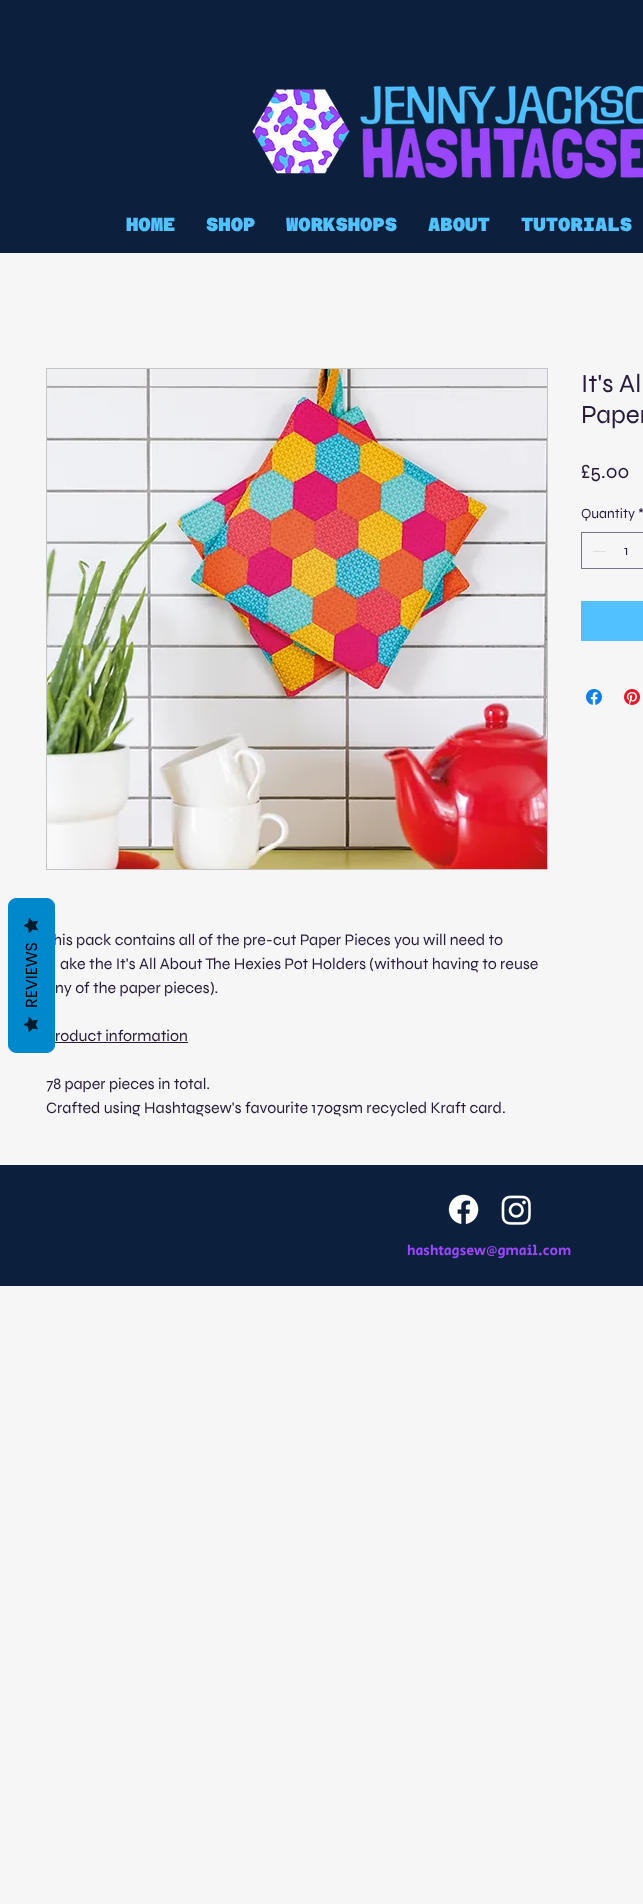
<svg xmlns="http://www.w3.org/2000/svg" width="643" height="1904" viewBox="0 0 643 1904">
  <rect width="100%" height="100%" fill="rgb(246,246,246)"/>
  <text x="53" y="945" font-family="Syne" font-size="16" fill="rgb(40,26,57)">his pack contains all of the pre-cut Paper Pieces you will need to</text>
  <path d="M8 1045V906C8 902 12 898 16 898H47C51 898 55 902 55 906V1045C55 1049 51 1053 47 1053H16C12 1053 8 1049 8 1045Z" fill="rgb(0,136,204)"/>
  <image x="23" y="918" width="15" height="15" href="pic1.png"/>
  <text x="37" y="1008" transform="rotate(-90 37 1008)" font-family="Poppins" font-size="16" fill="rgb(0,0,0)">REVIEWS</text>
  <image x="23" y="1017" width="15" height="15" href="pic1.png"/>
  <rect x="0" y="0" width="643" height="253" fill="rgb(12,32,61)"/>
  <image x="251" y="85" width="392" height="94" href="pic2.png"/>
  <g font-family="Azeret Mono" font-size="19" font-weight="900" fill="rgb(81,194,255)">
    <text x="126" y="231">HOME</text>
    <text x="206" y="231">SHOP</text>
    <text x="286" y="231">WORKSHOPS</text>
    <text x="428" y="231">ABOUT</text>
    <text x="521" y="231">TUTORIALS</text>
  </g>
  <g font-family="Syne" font-size="26" fill="rgb(40,26,57)">
    <text>
      <tspan x="581" y="392">It's Al</tspan>
      <tspan x="581" y="423">Paper</tspan>
    </text>
  </g>
  <text x="581" y="478" font-family="Syne" font-size="20" fill="rgb(40,26,57)">£5.00</text>
  <g font-family="Syne" font-size="14" fill="rgb(40,26,57)">
    <text x="581" y="518">Quantity</text>
    <text x="638" y="518">*</text>
  </g>
  <rect x="581.5" y="532.5" width="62" height="36" fill="none" stroke="rgb(122,114,133)"/>
  <rect x="593" y="551" width="13" height="1" fill="rgb(223,223,223)"/>
  <text x="624" y="555" font-family="Syne" font-size="14" fill="rgb(40,26,57)">1</text>
  <rect x="581" y="601" width="62" height="40" fill="rgb(81,194,255)"/>
  <image x="586" y="689" width="16" height="16" href="pic3.png"/>
  <image x="624" y="689" width="16" height="16" href="pic4.png"/>
  <rect x="46.5" y="368.5" width="501" height="501" fill="none" stroke="rgb(197,197,197)"/>
  <image x="47" y="369" width="500" height="500" href="pic5.png"/>
  <g font-family="Syne" font-size="16" fill="rgb(40,26,57)">
    <text x="60" y="969">ake the It's All About The Hexies Pot Holders (without having to reuse</text>
    <text x="55" y="993">ny of the paper pieces).</text>
    <text x="55" y="1041">roduct information</text>
  </g>
  <rect x="55" y="1042" width="133" height="1" fill="rgb(40,26,57)"/>
  <g font-family="Syne" font-size="16" fill="rgb(40,26,57)">
    <text>
      <tspan x="46" y="1089">78 paper pieces in total.</tspan>
      <tspan x="46" y="1113">Crafted using Hashtagsew's favourite 170gsm recycled Kraft card.</tspan>
    </text>
  </g>
  <rect x="0" y="1165" width="643" height="121" fill="rgb(12,32,61)"/>
  <image x="448" y="1194" width="31" height="30" href="pic6.png"/>
  <image x="501" y="1195" width="30" height="30" href="pic7.png"/>
  <text x="407" y="1255" font-family="Secular One" font-size="14" fill="rgb(155,71,252)">hashtagsew@gmail.com</text>
</svg>
